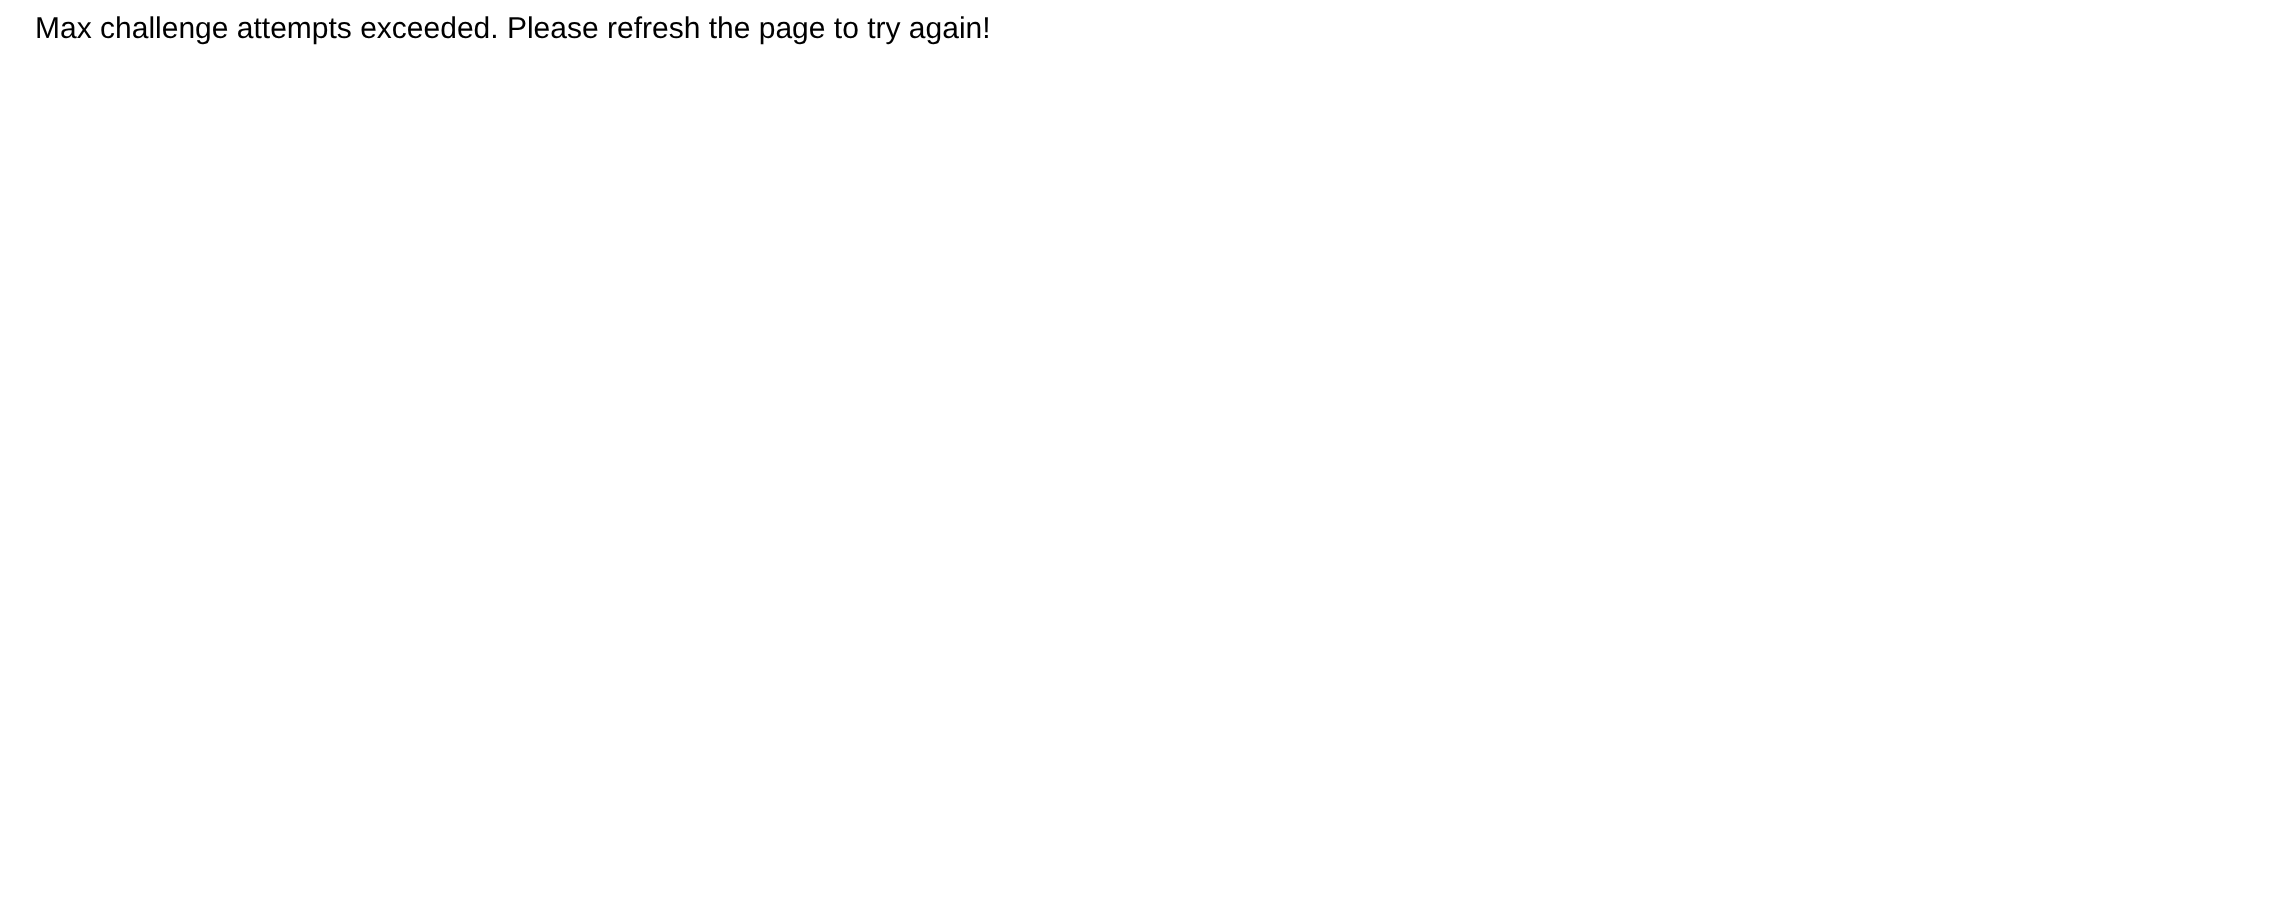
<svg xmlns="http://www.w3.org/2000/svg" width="2290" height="911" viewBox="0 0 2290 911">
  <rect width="100%" height="100%" fill="rgb(255,255,255)"/>
  <text x="35" y="38" font-family="Liberation Sans" font-size="30" fill="rgb(0,0,0)">Max challenge attempts exceeded. Please refresh the page to try again!</text>
</svg>
